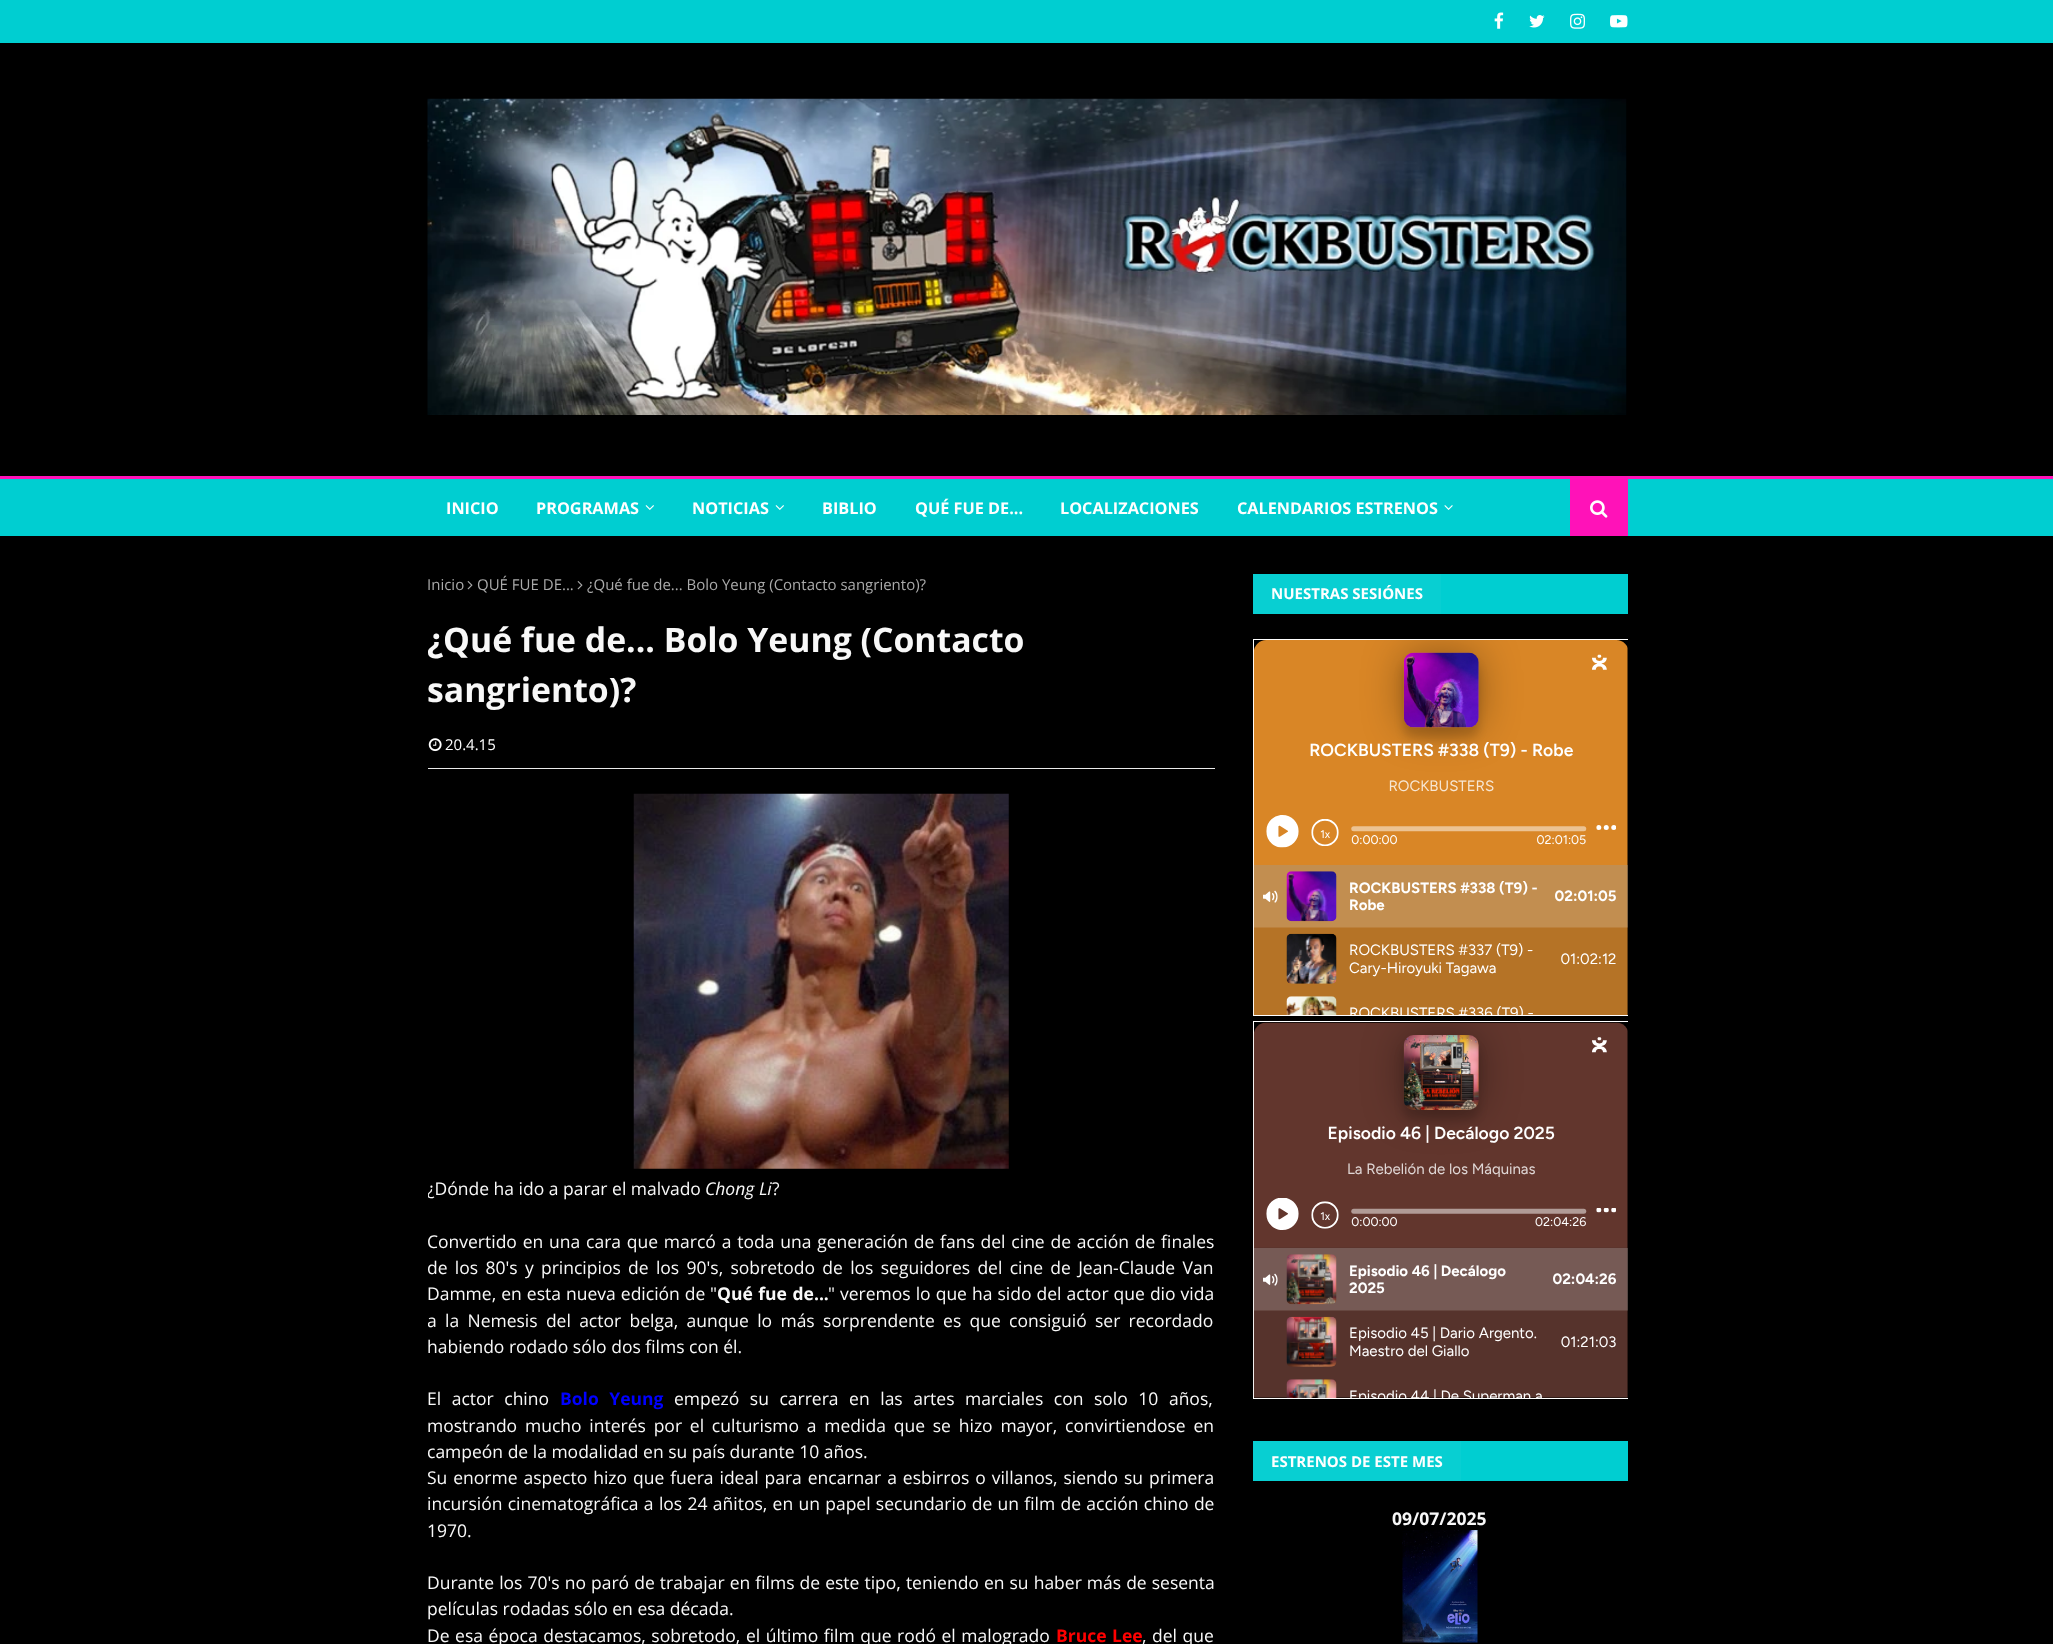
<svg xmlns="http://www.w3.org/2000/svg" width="2053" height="1644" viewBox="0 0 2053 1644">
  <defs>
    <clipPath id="clip1"><rect x="428" y="574" width="787" height="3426"/></clipPath>
    <clipPath id="clip2"><rect x="428" y="769" width="787" height="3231"/></clipPath>
    <clipPath id="clip3"><rect x="1253" y="574" width="375" height="830"/></clipPath>
  </defs>
  <rect width="100%" height="100%" fill="rgb(0,0,0)"/>
  <rect x="0" y="0" width="2053" height="43" fill="rgb(0,206,209)"/>
  <image x="1494" y="12" width="10" height="17" href="pic1.png"/>
  <image x="1529" y="15" width="16" height="13" href="pic2.png"/>
  <image x="1570" y="13" width="15" height="16" href="pic3.png"/>
  <image x="1610" y="15" width="18" height="13" href="pic4.png"/>
  <image x="427" y="98" width="1200" height="317" href="pic5.png"/>
  <rect x="0" y="479" width="2053" height="57" fill="rgb(0,206,209)"/>
  <rect x="0" y="476" width="2053" height="3" fill="rgb(255,18,184)"/>
  <g font-family="Open Sans" font-size="16.25" font-weight="bold" fill="rgb(255,255,255)">
    <text x="446" y="514">INICIO</text>
    <text x="536" y="514">PROGRAMAS</text>
  </g>
  <image x="645" y="505" width="9" height="5" href="pic6.png"/>
  <text x="692" y="514" font-family="Open Sans" font-size="16.25" font-weight="bold" fill="rgb(255,255,255)">NOTICIAS</text>
  <image x="775" y="505" width="9" height="5" href="pic6.png"/>
  <g font-family="Open Sans" font-size="16.25" font-weight="bold" fill="rgb(255,255,255)">
    <text x="822" y="514">BIBLIO</text>
    <text x="915" y="514">QUÉ FUE DE...</text>
    <text x="1060" y="514">LOCALIZACIONES</text>
    <text x="1237" y="514">CALENDARIOS ESTRENOS</text>
  </g>
  <image x="1444" y="505" width="9" height="5" href="pic7.png"/>
  <rect x="1570" y="479" width="58" height="57" fill="rgb(255,18,184)"/>
  <image x="1590" y="500" width="18" height="18" href="pic8.png"/>
  <text x="427" y="590" font-family="Open Sans" font-size="15" fill="rgb(170,170,170)">Inicio</text>
  <image x="467" y="581" width="6" height="9" href="pic9.png"/>
  <text x="477" y="590" font-family="Open Sans" font-size="15" fill="rgb(170,170,170)">QUÉ FUE DE...</text>
  <image x="577" y="581" width="6" height="9" href="pic9.png"/>
  <text x="587" y="590" font-family="Open Sans" font-size="15" fill="rgb(170,170,170)">¿Qué fue de... Bolo Yeung (Contacto sangriento)?</text>
  <g clip-path="url(#clip1)">
    <text x="427" y="652" font-family="Open Sans" font-size="33.75" font-weight="bold" fill="rgb(248,248,248)">¿Qué fue de... Bolo Yeung (Contacto</text>
  </g>
  <text x="427" y="702" font-family="Open Sans" font-size="33.75" font-weight="bold" fill="rgb(248,248,248)">sangriento)?</text>
  <rect x="428" y="768" width="787" height="1" fill="rgb(234,234,234)"/>
  <image x="428" y="738" width="14" height="14" href="pic10.png"/>
  <text x="445" y="750" font-family="Open Sans" font-size="15" fill="rgb(255,255,255)">20.4.15</text>
  <image x="633" y="793" width="376" height="376" href="pic11.png"/>
  <g clip-path="url(#clip2)">
    <text x="427" y="1195" font-family="Open Sans" font-size="17.5" fill="rgb(248,248,248)">¿Dónde ha ido a parar el malvado</text>
  </g>
  <text x="705" y="1195" font-family="Open Sans" font-size="17.5" font-style="italic" fill="rgb(248,248,248)">Chong Li</text>
  <g font-family="Open Sans" font-size="17.5" fill="rgb(248,248,248)">
    <text x="772" y="1195">?</text>
    <text>
      <tspan x="427" y="1248" word-spacing="1.25">Convertido en una cara que marcó a toda una generación de fans del cine de acción de finales</tspan>
      <tspan x="427" y="1274" word-spacing="2.75">de los 80's y principios de los 90's, sobretodo de los seguidores del cine de Jean-Claude Van</tspan>
      <tspan x="427" y="1300" word-spacing="0.5">Damme, en esta nueva edición de</tspan>
    </text>
    <text x="710" y="1300">"</text>
  </g>
  <text x="717" y="1300" word-spacing="1" font-family="Open Sans" font-size="17.5" font-weight="bold" fill="rgb(248,248,248)">Qué fue de...</text>
  <text x="828" y="1300" word-spacing="0.5" font-family="Open Sans" font-size="17.5" fill="rgb(248,248,248)">" veremos lo que ha sido del actor que dio vida</text>
  <g clip-path="url(#clip2)">
    <text x="427" y="1327" word-spacing="3.75" font-family="Open Sans" font-size="17.5" fill="rgb(248,248,248)">a la Nemesis del actor belga, aunque lo más sorprendente es que consiguió ser recordado</text>
  </g>
  <g font-family="Open Sans" font-size="17.5" fill="rgb(248,248,248)">
    <text x="427" y="1353">habiendo rodado sólo dos films con él.</text>
    <text x="427" y="1405" word-spacing="6">El actor chino</text>
  </g>
  <text x="560" y="1405" word-spacing="6" font-family="Open Sans" font-size="17.5" font-weight="bold" fill="rgb(0,0,255)">Bolo Yeung</text>
  <g font-family="Open Sans" font-size="17.5" fill="rgb(248,248,248)">
    <text x="674" y="1405" word-spacing="6">empezó su carrera en las artes marciales con solo 10 años,</text>
    <text>
      <tspan x="427" y="1432" word-spacing="3.25">mostrando mucho interés por el culturismo a medida que se hizo mayor, convirtiendose en</tspan>
      <tspan x="427" y="1458">campeón de la modalidad en su país durante 10 años.</tspan>
      <tspan x="427" y="1484" word-spacing="1.4">Su enorme aspecto hizo que fuera ideal para encarnar a esbirros o villanos, siendo su primera</tspan>
      <tspan x="427" y="1510" word-spacing="0.75">incursión cinematográfica a los 24 añitos, en un papel secundario de un film de acción chino de</tspan>
      <tspan x="427" y="1537">1970.</tspan>
    </text>
    <text>
      <tspan x="427" y="1589" word-spacing="0.5">Durante los 70's no paró de trabajar en films de este tipo, teniendo en su haber más de sesenta</tspan>
      <tspan x="427" y="1615">películas rodadas sólo en esa década.</tspan>
      <tspan x="427" y="1642" word-spacing="1">De esa época destacamos, sobretodo, el último film que rodó el malogrado</tspan>
    </text>
  </g>
  <text x="1056" y="1642" word-spacing="1" font-family="Open Sans" font-size="17.5" font-weight="bold" fill="rgb(255,0,0)">Bruce Lee</text>
  <text x="1142" y="1642" word-spacing="1" font-family="Open Sans" font-size="17.5" fill="rgb(248,248,248)">, del que</text>
  <rect x="1441" y="574" width="187" height="40" fill="rgb(0,206,209)"/>
  <rect x="1253" y="574" width="188" height="40" fill="rgb(8,207,210)"/>
  <text x="1271" y="599" font-family="Open Sans" font-size="15" font-weight="bold" fill="rgb(255,255,255)">NUESTRAS SESIÓNES</text>
  <g clip-path="url(#clip3)">
    <rect x="1253.5" y="639.5" width="376" height="376" fill="none" stroke="rgb(255,255,255)"/>
  </g>
  <image x="1253" y="640" width="375" height="375" href="pic12.png"/>
  <g clip-path="url(#clip3)">
    <rect x="1253.5" y="1021.5" width="376" height="377" fill="none" stroke="rgb(255,255,255)"/>
  </g>
  <image x="1253" y="1022" width="375" height="376" href="pic13.png"/>
  <rect x="1461" y="1441" width="167" height="40" fill="rgb(0,206,209)"/>
  <rect x="1253" y="1441" width="208" height="40" fill="rgb(8,207,210)"/>
  <text x="1271" y="1467" font-family="Open Sans" font-size="15" font-weight="bold" fill="rgb(255,255,255)">ESTRENOS DE ESTE MES</text>
  <text x="1392" y="1525" font-family="Open Sans" font-size="17.5" font-weight="bold" fill="rgb(248,248,248)">09/07/2025</text>
  <image x="1402" y="1530" width="76" height="113" href="pic14.png"/>
</svg>
